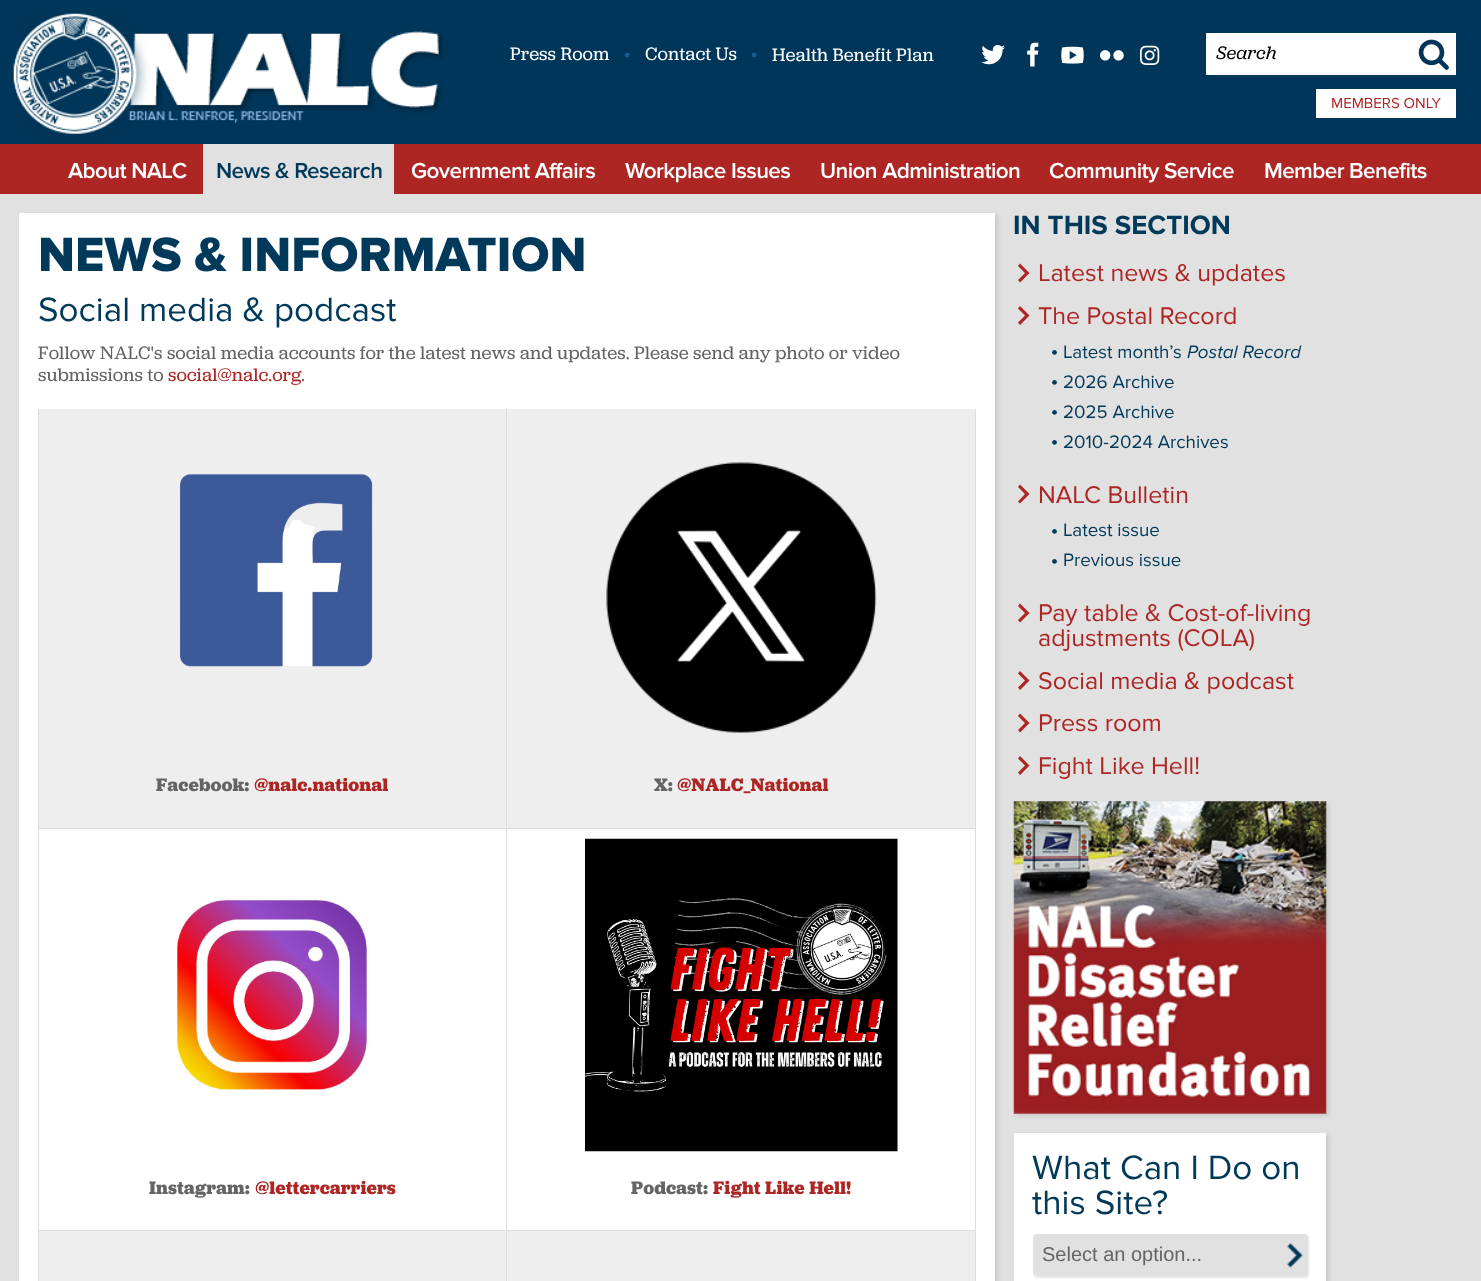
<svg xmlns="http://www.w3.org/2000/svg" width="1481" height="1281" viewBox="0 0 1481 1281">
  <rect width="100%" height="100%" fill="rgb(0,54,89)"/>
  <rect x="0" y="144" width="1481" height="50" fill="rgb(173,38,36)"/>
  <image x="13" y="13" width="431" height="132" href="pic1.png"/>
  <text x="510" y="60" font-family="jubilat" font-size="18.75" fill="rgb(255,255,255)">Press Room</text>
  <text x="624" y="60" font-family="jubilat" font-size="20" fill="rgb(24,94,140)">•</text>
  <text x="645" y="60" font-family="jubilat" font-size="18.75" fill="rgb(255,255,255)">Contact Us</text>
  <text x="751" y="60" font-family="jubilat" font-size="20" fill="rgb(24,94,140)">•</text>
  <text x="772" y="61" font-family="jubilat" font-size="18.75" fill="rgb(255,255,255)">Health Benefit Plan</text>
  <image x="981" y="45" width="24" height="20" href="pic2.png"/>
  <image x="1027" y="42" width="12" height="25" href="pic3.png"/>
  <image x="1061" y="46" width="23" height="18" href="pic4.png"/>
  <image x="1100" y="50" width="24" height="11" href="pic5.png"/>
  <image x="1140" y="45" width="20" height="20" href="pic6.png"/>
  <rect x="1206" y="33" width="250" height="42" fill="rgb(255,255,255)"/>
  <text x="1216" y="59" font-family="jubilat" font-size="18.75" font-style="italic" fill="rgb(0,0,0)">Search</text>
  <image x="1418" y="39" width="31" height="31" href="pic7.png"/>
  <rect x="1316" y="89" width="140" height="29" fill="rgb(255,255,255)"/>
  <text x="1331" y="108" font-family="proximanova" font-size="15" fill="rgb(173,38,36)">MEMBERS ONLY</text>
  <text x="68" y="178" font-family="proximanova" font-size="22.5" font-weight="600" letter-spacing="-0.6" fill="rgb(255,255,255)">About NALC</text>
  <rect x="203" y="144" width="191" height="50" fill="rgb(225,225,225)"/>
  <text x="216" y="178" font-family="proximanova" font-size="22.5" font-weight="600" letter-spacing="-0.6" fill="rgb(0,57,89)">News &amp; Research</text>
  <g font-family="proximanova" font-size="22.5" font-weight="600" letter-spacing="-0.6" fill="rgb(255,255,255)">
    <text x="411" y="178">Government Affairs</text>
    <text x="625" y="178">Workplace Issues</text>
    <text x="820" y="178">Union Administration</text>
    <text x="1049" y="178">Community Service</text>
    <text x="1264" y="178">Member Benefits</text>
  </g>
  <rect x="0" y="194" width="1481" height="1087" fill="rgb(225,225,225)"/>
  <rect x="21" y="215" width="977" height="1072" fill="rgba(0,0,0,0.1)" filter="blur(2px)"/>
  <rect x="19" y="213" width="976" height="1068" fill="rgb(255,255,255)"/>
  <text x="38" y="271" font-family="proximanova" font-size="50" font-weight="800" fill="rgb(0,57,89)">NEWS &amp; INFORMATION</text>
  <text x="38" y="321" font-family="proximanova" font-size="35" fill="rgb(0,57,89)">Social media &amp; podcast</text>
  <g font-family="jubilat" font-size="18.75" fill="rgb(100,100,100)">
    <text>
      <tspan x="38" y="359">Follow NALC's social media accounts for the latest news and updates. Please send any photo or video</tspan>
      <tspan x="38" y="381">submissions to</tspan>
    </text>
  </g>
  <text x="168" y="381" font-family="jubilat" font-size="18.75" fill="rgb(173,38,36)">social@nalc.org</text>
  <text x="301" y="381" font-family="jubilat" font-size="18.75" fill="rgb(100,100,100)">.</text>
  <rect x="39" y="409" width="936" height="872" fill="rgb(238,238,238)"/>
  <rect x="975" y="408" width="1" height="873" fill="rgb(221,221,221)"/>
  <rect x="38" y="408" width="1" height="873" fill="rgb(221,221,221)"/>
  <rect x="38" y="408" width="1" height="1" fill="rgb(255,255,255)"/>
  <rect x="39" y="829" width="936" height="401" fill="rgb(255,255,255)"/>
  <rect x="506" y="1230" width="1" height="51" fill="rgb(221,221,221)"/>
  <rect x="506" y="1230" width="470" height="1" fill="rgb(221,221,221)"/>
  <rect x="506" y="828" width="1" height="403" fill="rgb(221,221,221)"/>
  <rect x="506" y="828" width="470" height="1" fill="rgb(221,221,221)"/>
  <rect x="506" y="408" width="1" height="421" fill="rgb(221,221,221)"/>
  <rect x="38" y="828" width="470" height="1" fill="rgb(221,221,221)"/>
  <image x="179" y="474" width="194" height="193" href="pic8.png"/>
  <text x="156" y="791" font-family="jubilat" font-size="18.75" font-weight="bold" fill="rgb(100,100,100)">Facebook:</text>
  <text x="254" y="791" font-family="jubilat" font-size="18.75" font-weight="bold" fill="rgb(173,38,36)">@nalc.national</text>
  <rect x="975" y="408" width="1" height="1" fill="rgb(255,255,255)"/>
  <image x="606" y="462" width="271" height="271" href="pic9.png"/>
  <text x="654" y="791" font-family="jubilat" font-size="18.75" font-weight="bold" fill="rgb(100,100,100)">X:</text>
  <text x="677" y="791" font-family="jubilat" font-size="18.75" font-weight="bold" fill="rgb(173,38,36)">@NALC_National</text>
  <rect x="38" y="1230" width="470" height="1" fill="rgb(221,221,221)"/>
  <image x="176" y="899" width="192" height="191" href="pic10.png"/>
  <text x="149" y="1194" font-family="jubilat" font-size="18.75" font-weight="bold" fill="rgb(100,100,100)">Instagram:</text>
  <text x="255" y="1194" font-family="jubilat" font-size="18.75" font-weight="bold" fill="rgb(173,38,36)">@lettercarriers</text>
  <image x="585" y="838" width="313" height="314" href="pic11.png"/>
  <text x="631" y="1194" font-family="jubilat" font-size="18.75" font-weight="bold" fill="rgb(100,100,100)">Podcast:</text>
  <text x="713" y="1194" font-family="jubilat" font-size="18.75" font-weight="bold" fill="rgb(173,38,36)">Fight Like Hell!</text>
  <text x="1013" y="234" font-family="proximanova" font-size="27.5" font-weight="bold" fill="rgb(0,57,89)">IN THIS SECTION</text>
  <path d="M1029.5 273L1020 263.5L1018 266L1025 273L1018 280L1020 282.5Z" fill="rgb(173,38,36)"/>
  <text x="1038" y="281" font-family="proximanova" font-size="25" fill="rgb(173,38,36)">Latest news &amp; updates</text>
  <path d="M1029.5 315.5L1020 306L1018 308.5L1025 315.5L1018 322.5L1020 325Z" fill="rgb(173,38,36)"/>
  <text x="1038" y="324" font-family="proximanova" font-size="25" fill="rgb(173,38,36)">The Postal Record</text>
  <text x="1051" y="359" font-family="Liberation Serif" font-size="20" fill="rgb(0,57,89)">•</text>
  <text x="1063" y="358" font-family="proximanova" font-size="18.75" fill="rgb(0,57,89)">Latest month’s</text>
  <text x="1187" y="358" font-family="proximanova" font-size="18.75" font-style="italic" fill="rgb(0,57,89)">Postal Record</text>
  <text x="1051" y="389" font-family="Liberation Serif" font-size="20" fill="rgb(0,57,89)">•</text>
  <text x="1063" y="388" font-family="proximanova" font-size="18.75" fill="rgb(0,57,89)">2026 Archive</text>
  <text x="1051" y="419" font-family="Liberation Serif" font-size="20" fill="rgb(0,57,89)">•</text>
  <text x="1063" y="418" font-family="proximanova" font-size="18.75" fill="rgb(0,57,89)">2025 Archive</text>
  <text x="1051" y="449" font-family="Liberation Serif" font-size="20" fill="rgb(0,57,89)">•</text>
  <text x="1063" y="448" font-family="proximanova" font-size="18.75" fill="rgb(0,57,89)">2010-2024 Archives</text>
  <path d="M1029.5 494L1020 484.5L1018 487L1025 494L1018 501.5L1020 503.5Z" fill="rgb(173,38,36)"/>
  <text x="1038" y="503" font-family="proximanova" font-size="25" fill="rgb(173,38,36)">NALC Bulletin</text>
  <text x="1051" y="538" font-family="Liberation Serif" font-size="20" fill="rgb(0,57,89)">•</text>
  <text x="1063" y="536" font-family="proximanova" font-size="18.75" fill="rgb(0,57,89)">Latest issue</text>
  <text x="1051" y="568" font-family="Liberation Serif" font-size="20" fill="rgb(0,57,89)">•</text>
  <text x="1063" y="566" font-family="proximanova" font-size="18.75" fill="rgb(0,57,89)">Previous issue</text>
  <path d="M1029.5 613L1020 603.5L1018 606L1025 613L1018 620L1020 622.5Z" fill="rgb(173,38,36)"/>
  <g font-family="proximanova" font-size="25" fill="rgb(173,38,36)">
    <text>
      <tspan x="1038" y="621">Pay table &amp; Cost-of-living</tspan>
      <tspan x="1038" y="646">adjustments (COLA)</tspan>
    </text>
  </g>
  <path d="M1029.5 680.5L1020 671L1018 673.5L1025 680.5L1018 687.5L1020 690Z" fill="rgb(173,38,36)"/>
  <text x="1038" y="689" font-family="proximanova" font-size="25" fill="rgb(173,38,36)">Social media &amp; podcast</text>
  <path d="M1029.5 723L1020 713.5L1018 716L1025 723L1018 730L1020 732.5Z" fill="rgb(173,38,36)"/>
  <text x="1038" y="731" font-family="proximanova" font-size="25" fill="rgb(173,38,36)">Press room</text>
  <path d="M1029.5 765.5L1020 756L1018 758.5L1025 765.5L1018 772.5L1020 775Z" fill="rgb(173,38,36)"/>
  <text x="1038" y="774" font-family="proximanova" font-size="25" fill="rgb(173,38,36)">Fight Like Hell!</text>
  <rect x="1016" y="804" width="313" height="312" fill="rgba(0,0,0,0.1)" filter="blur(2px)"/>
  <image x="1013" y="801" width="314" height="313" href="pic12.png"/>
  <rect x="1016" y="1135" width="313" height="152" fill="rgba(0,0,0,0.1)" filter="blur(2px)"/>
  <rect x="1014" y="1133" width="312" height="148" fill="rgb(255,255,255)"/>
  <g font-family="proximanova" font-size="35" fill="rgb(0,57,89)">
    <text>
      <tspan x="1032" y="1179">What Can I Do on</tspan>
      <tspan x="1032" y="1214">this Site?</tspan>
    </text>
  </g>
  <rect x="1034" y="1235" width="275" height="43" rx="4" fill="rgba(0,0,0,0.1)" filter="blur(1px)"/>
  <rect x="1033" y="1234" width="275" height="42" rx="4" fill="rgb(225,225,225)"/>
  <image x="1287" y="1242" width="16" height="26" href="pic13.png"/>
  <text x="1042" y="1261" font-family="Liberation Sans" font-size="20" fill="rgb(100,100,100)">Select an option...</text>
</svg>
